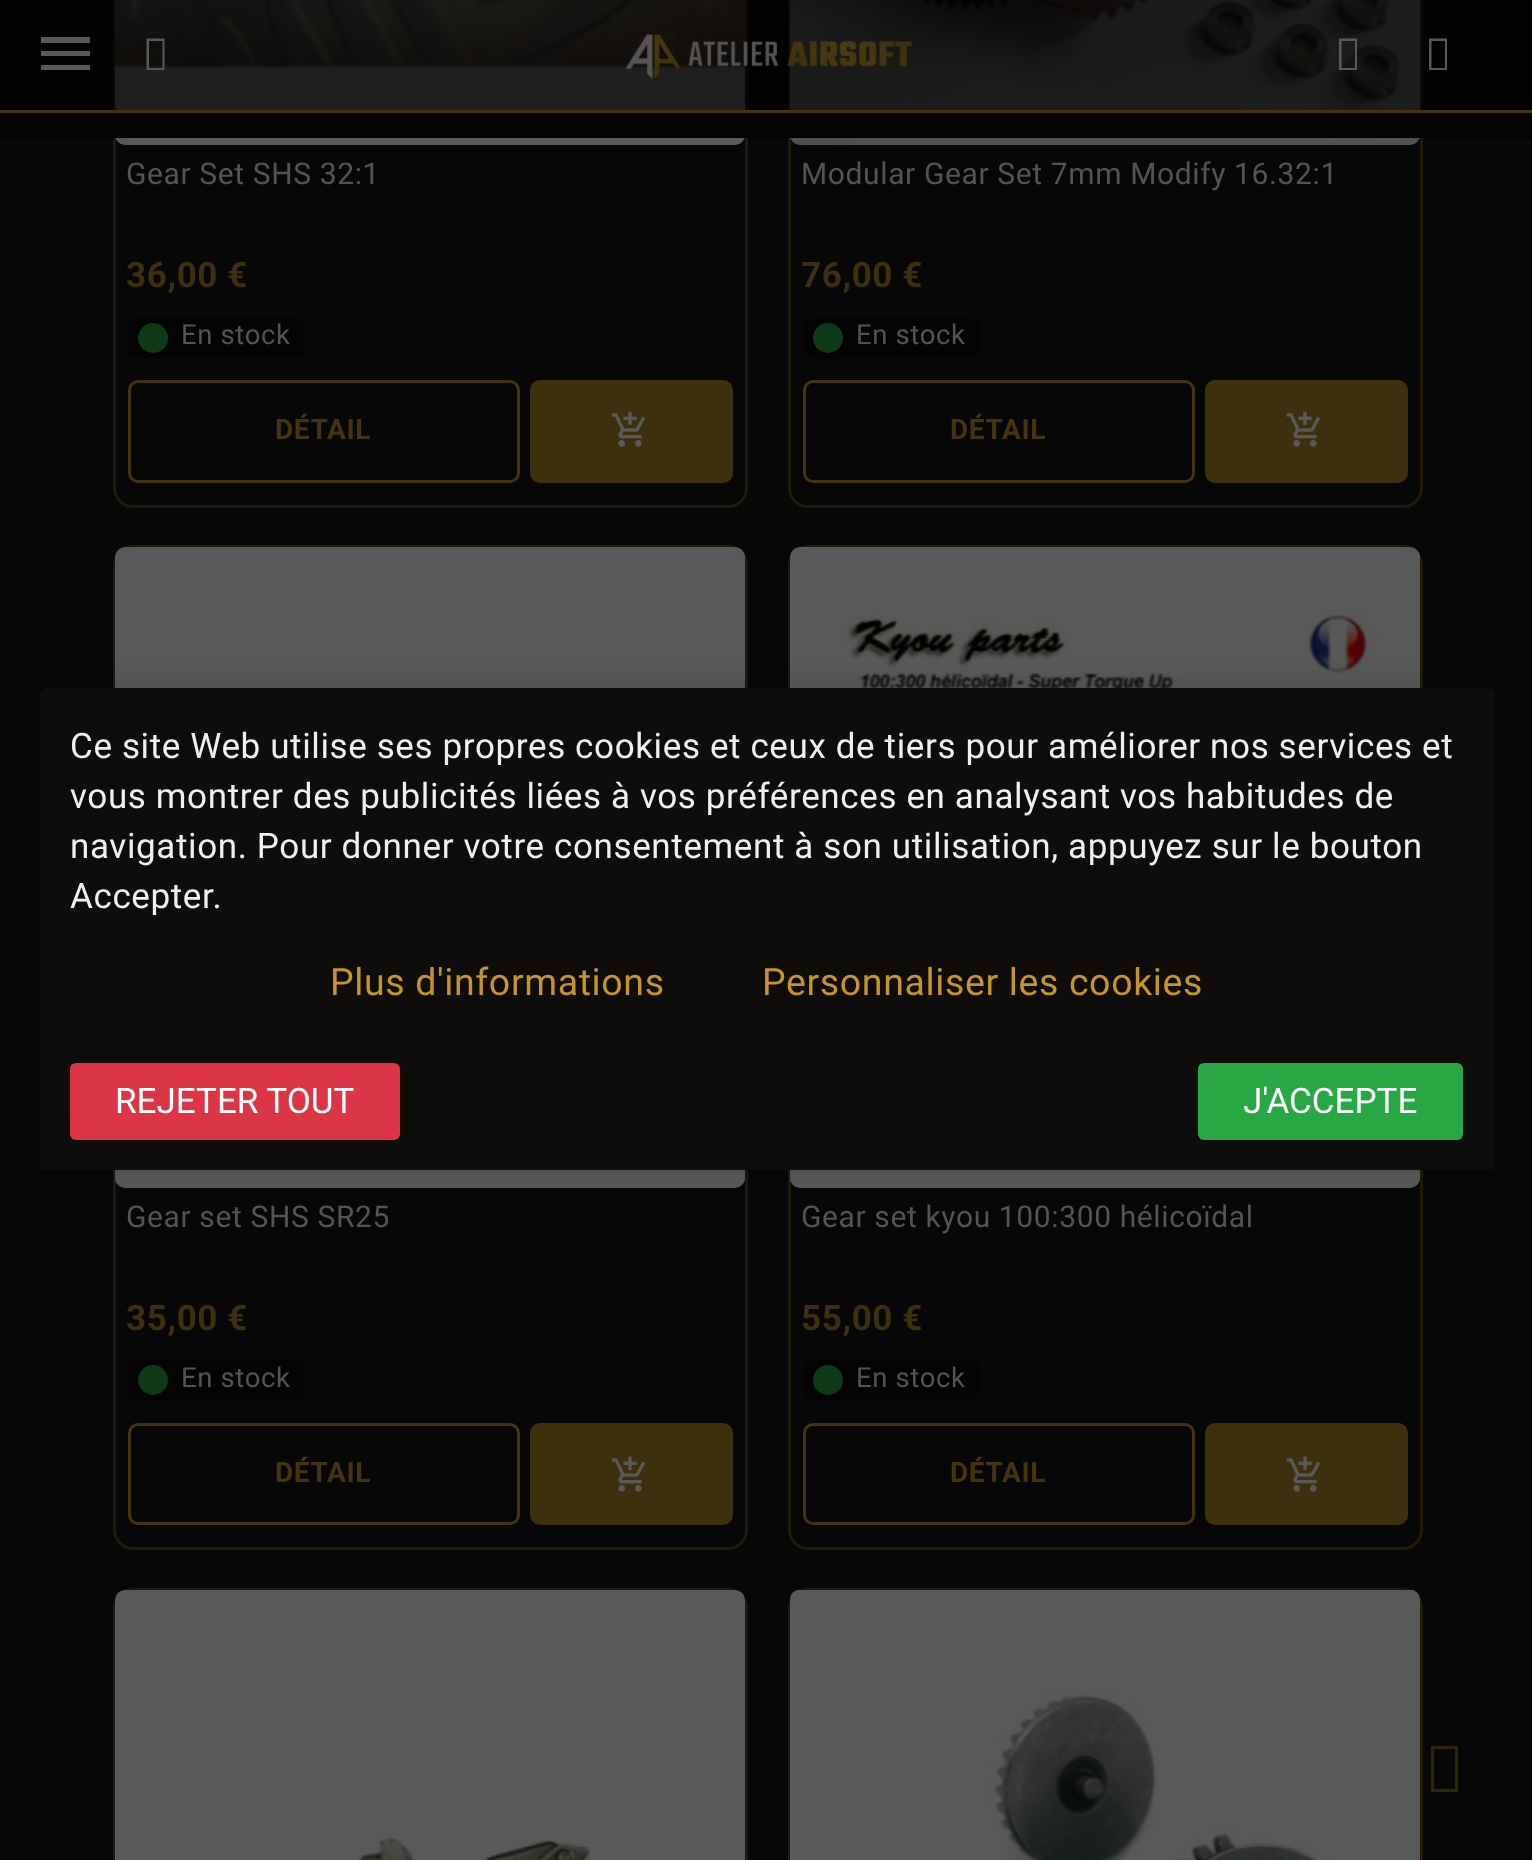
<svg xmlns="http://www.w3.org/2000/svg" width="1532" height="1860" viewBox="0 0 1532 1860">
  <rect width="100%" height="100%" fill="rgb(8,7,7)"/>
  <rect x="114.5" y="-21.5" width="632" height="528" rx="18.5" fill="none" stroke="rgb(33,26,9)" stroke-width="3"/>
  <rect x="115" y="-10" width="630" height="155" rx="10" fill="rgb(89,89,89)"/>
  <image x="115" y="0" width="630" height="145" href="pic2.png"/>
  <rect x="789.5" y="-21.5" width="632" height="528" rx="18.5" fill="none" stroke="rgb(33,26,9)" stroke-width="3"/>
  <rect x="790" y="-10" width="630" height="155" rx="10" fill="rgb(89,89,89)"/>
  <image x="790" y="0" width="630" height="145" href="pic4.png"/>
  <rect x="0" y="0" width="1532" height="110" fill="rgba(0,0,0,0.65)"/>
  <rect x="0" y="110" width="1532" height="3" fill="rgb(70,52,13)"/>
  <path d="M41 70H90V65H41ZM41 56H90V51H41ZM41 37V43H90V37Z" fill="rgb(89,89,89)"/>
  <path d="M146.5 70V38.5H164.5V70ZM149 68H162.5V41H149Z" fill="rgb(89,89,89)"/>
  <image x="625" y="33" width="288" height="47" href="pic1.png"/>
  <path d="M1339 70V38.5H1357V70ZM1341.5 68H1355V41H1341.5Z" fill="rgb(89,89,89)"/>
  <path d="M1429 70V38.5H1447V70ZM1431.5 68H1445V41H1431.5Z" fill="rgb(89,89,89)"/>
  <rect x="0" y="113" width="1532" height="25" fill="rgb(4,4,4)"/>
  <text x="126" y="184" font-family="Roboto" font-size="30" letter-spacing="0.62" fill="rgb(84,84,84)">Gear Set SHS 32:1</text>
  <text x="126" y="287" font-family="Roboto" font-size="35" font-weight="bold" letter-spacing="0.62" fill="rgb(63,48,13)">36,00 €</text>
  <rect x="128" y="318" width="177" height="40" rx="10" fill="rgb(4,4,4)"/>
  <circle cx="153" cy="338" r="15" fill="rgb(14,58,24)"/>
  <text x="181" y="344" font-family="Roboto" font-size="27.5" letter-spacing="0.62" fill="rgb(84,84,84)">En stock</text>
  <rect x="129.5" y="381.5" width="389" height="100" rx="8.5" fill="none" stroke="rgb(70,52,13)" stroke-width="3"/>
  <text x="275" y="439" font-family="Roboto" font-size="28" font-weight="bold" letter-spacing="0.62" fill="rgb(70,52,13)">DÉTAIL</text>
  <rect x="531.5" y="381.5" width="200" height="100" rx="8.5" fill="rgb(63,48,13)" stroke="rgb(63,48,13)" stroke-width="3"/>
  <image x="611" y="411" width="35" height="36" href="pic3.png"/>
  <text x="801" y="184" font-family="Roboto" font-size="30" letter-spacing="0.62" fill="rgb(84,84,84)">Modular Gear Set 7mm Modify 16.32:1</text>
  <text x="801" y="287" font-family="Roboto" font-size="35" font-weight="bold" letter-spacing="0.62" fill="rgb(63,48,13)">76,00 €</text>
  <rect x="803" y="318" width="177" height="40" rx="10" fill="rgb(4,4,4)"/>
  <circle cx="828" cy="338" r="15" fill="rgb(14,58,24)"/>
  <text x="856" y="344" font-family="Roboto" font-size="27.5" letter-spacing="0.62" fill="rgb(84,84,84)">En stock</text>
  <rect x="804.5" y="381.5" width="389" height="100" rx="8.5" fill="none" stroke="rgb(70,52,13)" stroke-width="3"/>
  <text x="950" y="439" font-family="Roboto" font-size="28" font-weight="bold" letter-spacing="0.62" fill="rgb(70,52,13)">DÉTAIL</text>
  <rect x="1206.5" y="381.5" width="200" height="100" rx="8.5" fill="rgb(63,48,13)" stroke="rgb(63,48,13)" stroke-width="3"/>
  <image x="1286" y="411" width="35" height="36" href="pic3.png"/>
  <rect x="114.5" y="546.5" width="632" height="1002" rx="18.5" fill="none" stroke="rgb(33,26,9)" stroke-width="3"/>
  <rect x="115" y="548" width="630" height="640" rx="10" fill="rgb(89,89,89)"/>
  <image x="115" y="547" width="630" height="636" href="pic5.png"/>
  <text x="126" y="1227" font-family="Roboto" font-size="30" letter-spacing="0.62" fill="rgb(84,84,84)">Gear set SHS SR25</text>
  <text x="126" y="1330" font-family="Roboto" font-size="35" font-weight="bold" letter-spacing="0.62" fill="rgb(63,48,13)">35,00 €</text>
  <rect x="128" y="1360" width="177" height="40" rx="10" fill="rgb(4,4,4)"/>
  <circle cx="153" cy="1380" r="15" fill="rgb(14,58,24)"/>
  <text x="181" y="1387" font-family="Roboto" font-size="27.5" letter-spacing="0.62" fill="rgb(84,84,84)">En stock</text>
  <rect x="129.5" y="1424.5" width="389" height="99" rx="8.5" fill="none" stroke="rgb(70,52,13)" stroke-width="3"/>
  <text x="275" y="1482" font-family="Roboto" font-size="28" font-weight="bold" letter-spacing="0.62" fill="rgb(70,52,13)">DÉTAIL</text>
  <rect x="531.5" y="1424.5" width="200" height="99" rx="8.5" fill="rgb(63,48,13)" stroke="rgb(63,48,13)" stroke-width="3"/>
  <image x="611" y="1456" width="35" height="36" href="pic3.png"/>
  <rect x="789.5" y="546.5" width="632" height="1002" rx="18.5" fill="none" stroke="rgb(33,26,9)" stroke-width="3"/>
  <rect x="790" y="548" width="630" height="640" rx="10" fill="rgb(89,89,89)"/>
  <image x="790" y="547" width="630" height="636" href="pic6.png"/>
  <text x="801" y="1227" font-family="Roboto" font-size="30" letter-spacing="0.62" fill="rgb(84,84,84)">Gear set kyou 100:300 hélicoïdal</text>
  <text x="801" y="1330" font-family="Roboto" font-size="35" font-weight="bold" letter-spacing="0.62" fill="rgb(63,48,13)">55,00 €</text>
  <rect x="803" y="1360" width="177" height="40" rx="10" fill="rgb(4,4,4)"/>
  <circle cx="828" cy="1380" r="15" fill="rgb(14,58,24)"/>
  <text x="856" y="1387" font-family="Roboto" font-size="27.5" letter-spacing="0.62" fill="rgb(84,84,84)">En stock</text>
  <rect x="804.5" y="1424.5" width="389" height="99" rx="8.5" fill="none" stroke="rgb(70,52,13)" stroke-width="3"/>
  <text x="950" y="1482" font-family="Roboto" font-size="28" font-weight="bold" letter-spacing="0.62" fill="rgb(70,52,13)">DÉTAIL</text>
  <rect x="1206.5" y="1424.5" width="200" height="99" rx="8.5" fill="rgb(63,48,13)" stroke="rgb(63,48,13)" stroke-width="3"/>
  <image x="1286" y="1456" width="35" height="36" href="pic3.png"/>
  <rect x="114.5" y="1589.5" width="632" height="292" rx="18.5" fill="none" stroke="rgb(33,26,9)" stroke-width="3"/>
  <rect x="115" y="1590" width="630" height="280" rx="10" fill="rgb(89,89,89)"/>
  <image x="358" y="1837" width="233" height="23" href="pic7.png"/>
  <rect x="789.5" y="1589.5" width="632" height="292" rx="18.5" fill="none" stroke="rgb(33,26,9)" stroke-width="3"/>
  <image x="790" y="1590" width="630" height="270" href="pic8.png"/>
  <rect x="40" y="688" width="1455" height="482" rx="10" fill="rgba(0,0,0,0.16)" filter="blur(12.5px)"/>
  <rect x="40" y="688" width="1455" height="482" rx="6" fill="rgb(14,13,12)"/>
  <g font-family="Roboto" font-size="35" letter-spacing="0.62" fill="rgb(241,239,239)">
    <text>
      <tspan x="70" y="758">Ce site Web utilise ses propres cookies et ceux de tiers pour améliorer nos services et</tspan>
      <tspan x="70" y="808">vous montrer des publicités liées à vos préférences en analysant vos habitudes de</tspan>
      <tspan x="70" y="858">navigation. Pour donner votre consentement à son utilisation, appuyez sur le bouton</tspan>
      <tspan x="70" y="908">Accepter.</tspan>
    </text>
  </g>
  <g font-family="Roboto" font-size="37.5" letter-spacing="0.62" fill="rgb(199,148,38)">
    <text x="330" y="995">Plus d'informations</text>
    <text x="762" y="995">Personnaliser les cookies</text>
  </g>
  <rect x="70" y="1063" width="330" height="77" rx="6" fill="rgb(220,53,69)"/>
  <text x="115" y="1113" font-family="Roboto" font-size="35" fill="rgb(255,255,255)">REJETER TOUT</text>
  <rect x="1198" y="1063" width="265" height="77" rx="6" fill="rgb(40,167,69)"/>
  <text x="1243" y="1113" font-family="Roboto" font-size="35" fill="rgb(255,255,255)">J'ACCEPTE</text>
  <path d="M1431 1792V1746H1458V1792ZM1434 1789H1455V1749H1434Z" fill="rgb(48,36,11)"/>
</svg>
